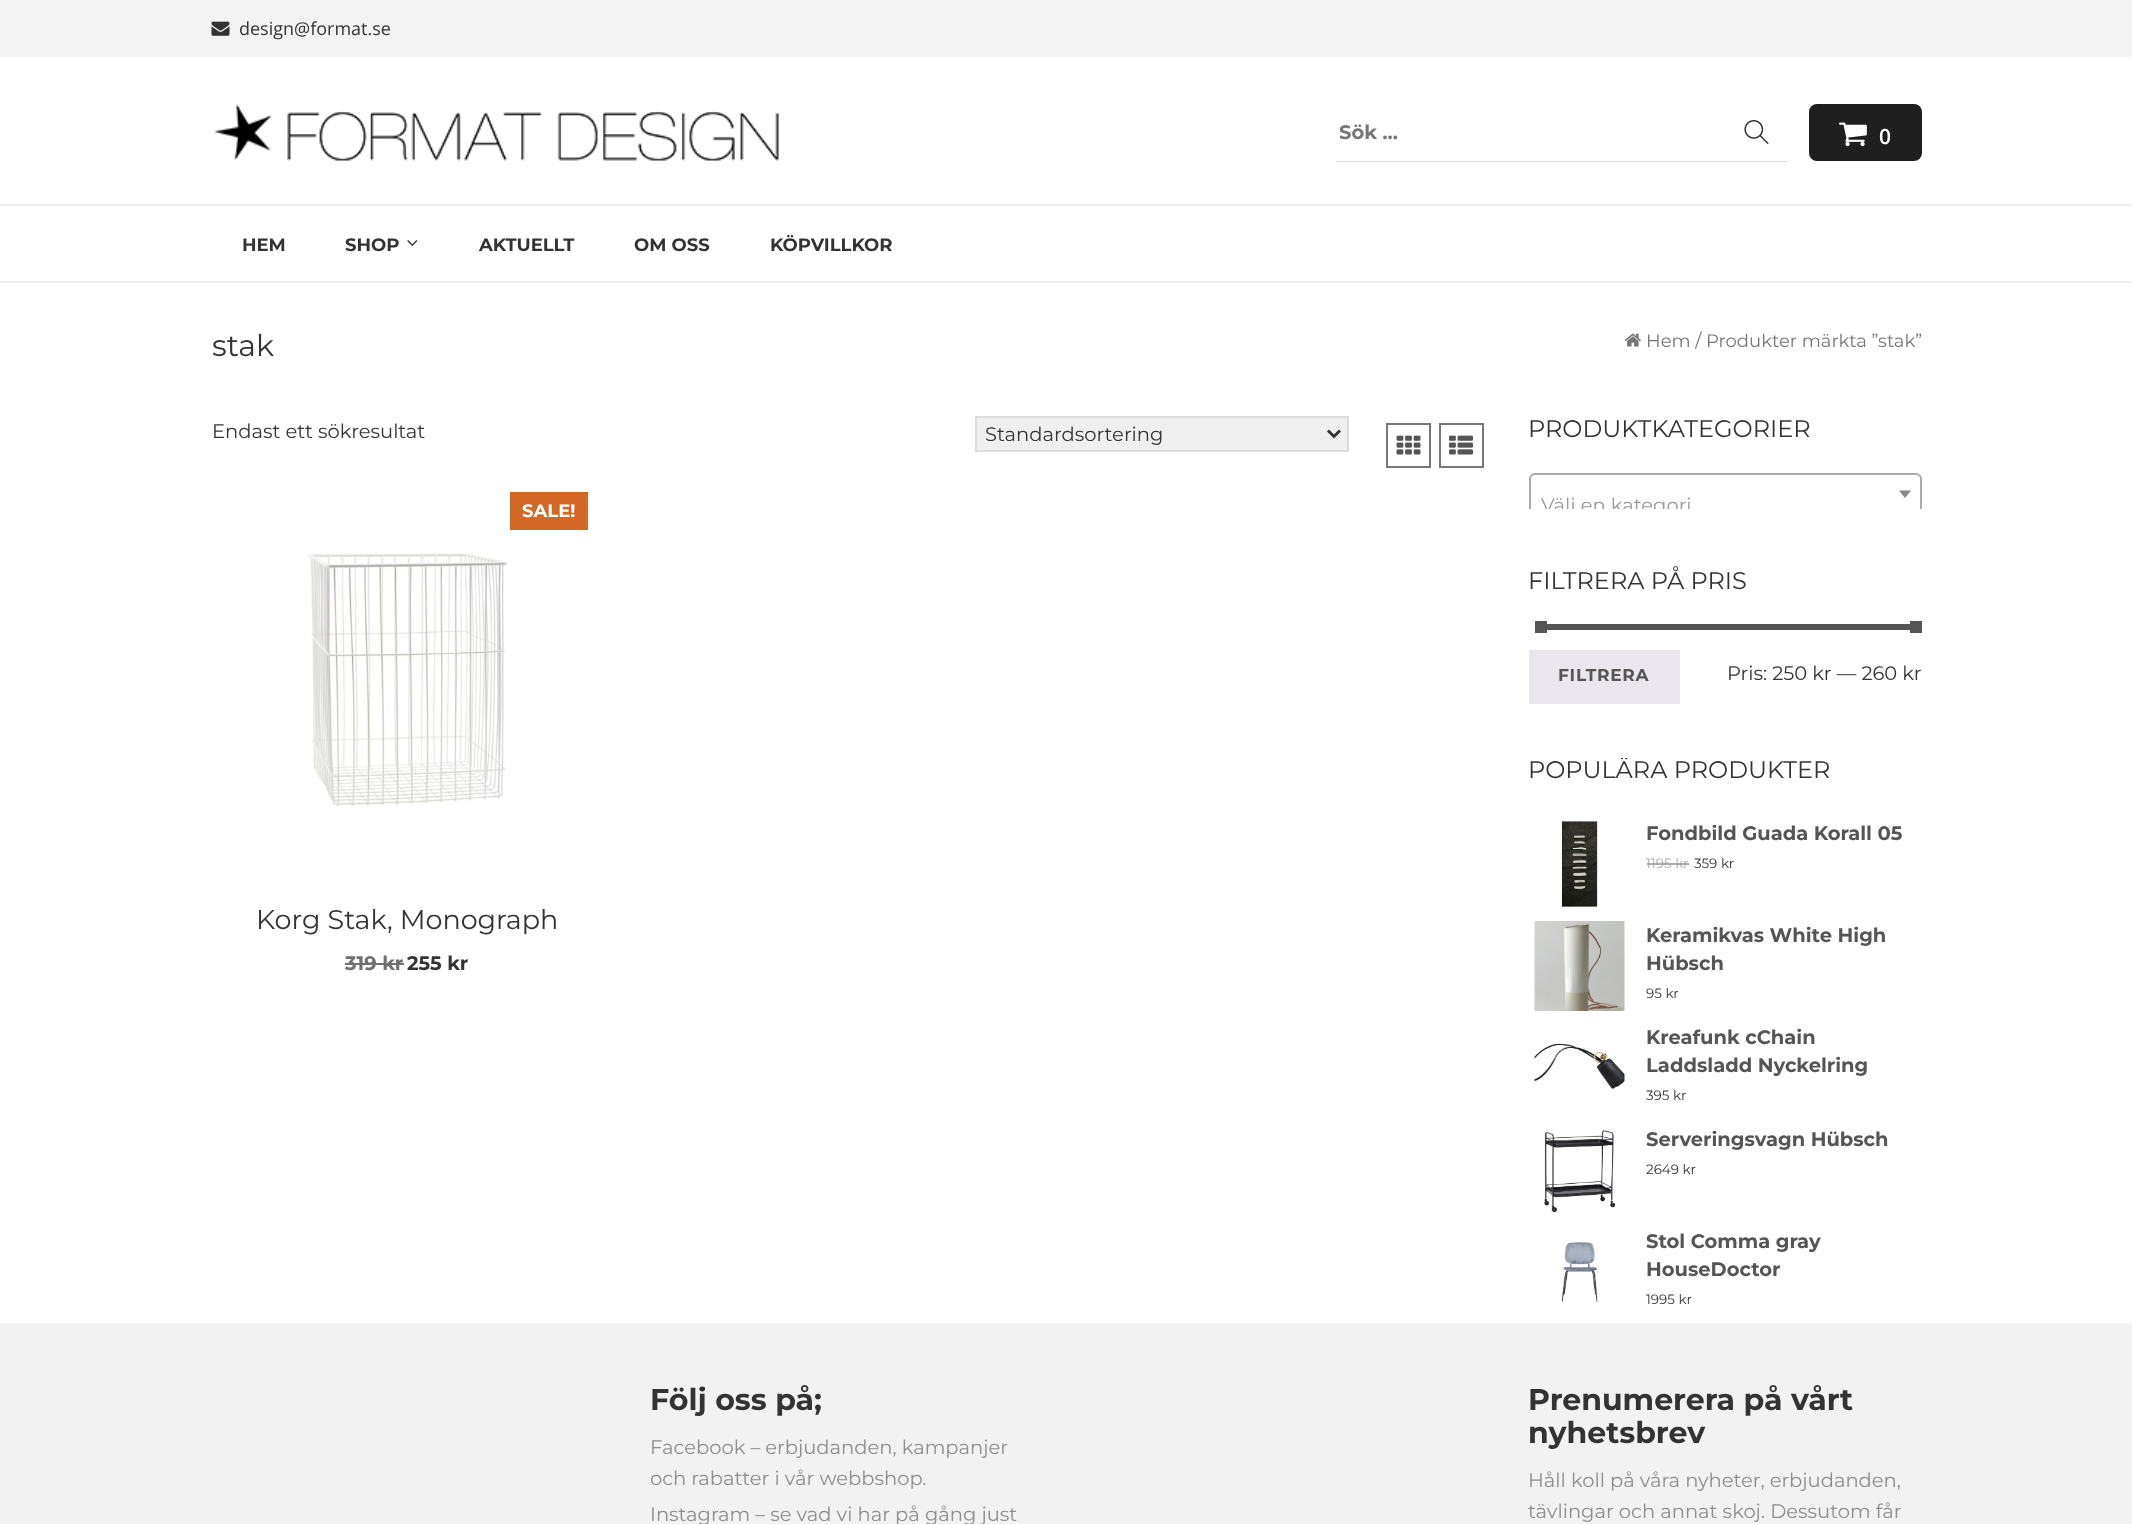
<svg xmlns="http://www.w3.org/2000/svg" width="2132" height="1524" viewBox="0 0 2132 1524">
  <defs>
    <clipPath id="clip1"><rect x="1529" y="416" width="393" height="93"/></clipPath>
    <clipPath id="clip2"><rect x="1530" y="474" width="390" height="35"/></clipPath>
    <clipPath id="clip3"><rect x="1529" y="758" width="393" height="565"/></clipPath>
  </defs>
  <rect width="100%" height="100%" fill="rgb(255,255,255)"/>
  <rect x="0" y="0" width="2132" height="57" fill="rgb(243,243,243)"/>
  <image x="211" y="21" width="19" height="15" href="pic1.png"/>
  <text x="239" y="35" font-family="Open Sans" font-size="18" fill="rgb(51,51,51)">design@format.se</text>
  <image x="214" y="103" width="565" height="58" href="pic2.png"/>
  <rect x="1337" y="161" width="450" height="1" fill="rgb(221,221,221)"/>
  <text x="1339" y="139" font-family="Montserrat" font-size="19.5" font-weight="bold" fill="rgb(118,118,118)">Sök ...</text>
  <image x="1744" y="120" width="25" height="24" href="pic3.png"/>
  <rect x="1809" y="104" width="113" height="57" rx="8" fill="rgb(31,31,31)"/>
  <image x="1839" y="122" width="28" height="25" href="pic4.png"/>
  <text x="1879" y="144" font-family="Open Sans" font-size="21" font-weight="600" fill="rgb(255,255,255)">0</text>
  <rect x="0" y="204" width="2132" height="2" fill="rgb(238,238,238)"/>
  <rect x="0" y="281" width="2132" height="2" fill="rgb(238,238,238)"/>
  <g font-family="Montserrat" font-size="18" font-weight="bold" fill="rgb(51,51,51)">
    <text x="242" y="251">HEM</text>
    <text x="345" y="251">SHOP</text>
  </g>
  <image x="407" y="240" width="11" height="6" href="pic5.png"/>
  <g font-family="Montserrat" font-size="18" font-weight="bold" fill="rgb(51,51,51)">
    <text x="479" y="251">AKTUELLT</text>
    <text x="634" y="251">OM OSS</text>
    <text x="770" y="251">KÖPVILLKOR</text>
  </g>
  <text x="212" y="356" font-family="Montserrat" font-size="30" fill="rgb(51,51,51)">stak</text>
  <image x="1624" y="333" width="17" height="14" href="pic6.png"/>
  <text x="1646" y="347" font-family="Montserrat" font-size="18" fill="rgb(118,118,118)">Hem / Produkter märkta ”stak”</text>
  <text x="212" y="438" font-family="Montserrat" font-size="19.5" fill="rgb(51,51,51)">Endast ett sökresultat</text>
  <rect x="976" y="417" width="372" height="34" fill="rgb(239,239,239)" stroke="rgb(221,221,221)" stroke-width="2"/>
  <path d="M1328 430.5L1334 436.5L1340 430.5" fill="none" stroke="rgb(51,51,51)" stroke-width="3"/>
  <text x="985" y="441" font-family="Montserrat" font-size="19.5" fill="rgb(51,51,51)">Standardsortering</text>
  <rect x="1387" y="424" width="43" height="43" fill="none" stroke="rgb(119,119,119)" stroke-width="2"/>
  <image x="1396" y="435" width="25" height="20" href="pic7.png"/>
  <rect x="1440" y="424" width="43" height="43" fill="none" stroke="rgb(119,119,119)" stroke-width="2"/>
  <image x="1449" y="435" width="24" height="20" href="pic8.png"/>
  <rect x="510" y="492" width="78" height="38" fill="rgb(211,104,38)"/>
  <text x="522" y="517" font-family="Montserrat" font-size="18" font-weight="bold" fill="rgb(255,255,255)">SALE!</text>
  <image x="308" y="553" width="200" height="255" href="pic9.png"/>
  <text x="256" y="929" font-family="Montserrat" font-size="27" fill="rgb(51,51,51)">Korg Stak, Monograph</text>
  <text x="345" y="970" font-family="Montserrat" font-size="19.5" font-weight="bold" fill="rgb(112,112,112)">319 kr</text>
  <rect x="345" y="963" width="59" height="2" fill="rgb(112,112,112)"/>
  <text x="407" y="970" font-family="Montserrat" font-size="19.5" font-weight="bold" fill="rgb(51,51,51)">255 kr</text>
  <text x="1528" y="437" font-family="Montserrat" font-size="24" fill="rgb(51,51,51)">PRODUKTKATEGORIER</text>
  <g clip-path="url(#clip1)">
    <rect x="1530" y="474" width="391" height="40" rx="5" fill="none" stroke="rgb(170,170,170)" stroke-width="2"/>
  </g>
  <path d="M1899 490.5H1911L1905 498Z" fill="rgb(136,136,136)"/>
  <g clip-path="url(#clip2)">
    <text x="1541" y="512" font-family="Montserrat" font-size="19.5" fill="rgb(153,153,153)">Välj en kategori</text>
  </g>
  <text x="1528" y="589" font-family="Montserrat" font-size="24" fill="rgb(51,51,51)">FILTRERA PÅ PRIS</text>
  <rect x="1535" y="621" width="12" height="12" fill="rgb(85,85,85)"/>
  <rect x="1547" y="624" width="366" height="6" fill="rgb(85,85,85)"/>
  <rect x="1910" y="621" width="12" height="12" fill="rgb(85,85,85)"/>
  <rect x="1529" y="650" width="151" height="54" fill="rgb(233,230,237)"/>
  <text x="1558" y="681" font-family="Montserrat" font-size="17" font-weight="bold" letter-spacing="0.75" fill="rgb(85,85,85)">FILTRERA</text>
  <text x="1727" y="680" font-family="Montserrat" font-size="19.5" fill="rgb(51,51,51)">Pris: 250 kr — 260 kr</text>
  <g clip-path="url(#clip3)">
    <text x="1528" y="778" font-family="Montserrat" font-size="24" fill="rgb(51,51,51)">POPULÄRA PRODUKTER</text>
  </g>
  <image x="1561" y="821" width="37" height="86" href="pic10.png"/>
  <text x="1646" y="840" font-family="Montserrat" font-size="19.5" font-weight="bold" fill="rgb(85,85,85)">Fondbild Guada Korall 05</text>
  <text x="1646" y="868" font-family="Montserrat" font-size="13.5" fill="rgb(170,170,170)">1195 kr</text>
  <rect x="1647" y="863" width="42" height="2" fill="rgb(170,170,170)"/>
  <text x="1694" y="868" font-family="Montserrat" font-size="13.5" fill="rgb(51,51,51)">359 kr</text>
  <image x="1534" y="921" width="91" height="90" href="pic11.png"/>
  <g font-family="Montserrat" font-size="19.5" font-weight="bold" fill="rgb(85,85,85)">
    <text>
      <tspan x="1646" y="942">Keramikvas White High</tspan>
      <tspan x="1646" y="970">Hübsch</tspan>
    </text>
  </g>
  <text x="1646" y="998" font-family="Montserrat" font-size="13.5" fill="rgb(51,51,51)">95 kr</text>
  <text x="1646" y="1044" font-family="Montserrat" font-size="19.5" font-weight="bold" fill="rgb(85,85,85)">Kreafunk cChain</text>
  <image x="1534" y="1043" width="91" height="46" href="pic12.png"/>
  <text x="1646" y="1072" font-family="Montserrat" font-size="19.5" font-weight="bold" fill="rgb(85,85,85)">Laddsladd Nyckelring</text>
  <text x="1646" y="1100" font-family="Montserrat" font-size="13.5" fill="rgb(51,51,51)">395 kr</text>
  <image x="1544" y="1130" width="72" height="83" href="pic13.png"/>
  <text x="1646" y="1146" font-family="Montserrat" font-size="19.5" font-weight="bold" fill="rgb(85,85,85)">Serveringsvagn Hübsch</text>
  <text x="1646" y="1174" font-family="Montserrat" font-size="13.5" fill="rgb(51,51,51)">2649 kr</text>
  <image x="1561" y="1242" width="37" height="60" href="pic14.png"/>
  <g font-family="Montserrat" font-size="19.5" font-weight="bold" fill="rgb(85,85,85)">
    <text>
      <tspan x="1646" y="1248">Stol Comma gray</tspan>
      <tspan x="1646" y="1276">HouseDoctor</tspan>
    </text>
  </g>
  <text x="1646" y="1304" font-family="Montserrat" font-size="13.5" fill="rgb(51,51,51)">1995 kr</text>
  <rect x="0" y="1323" width="2132" height="201" fill="rgb(242,242,242)"/>
  <text x="650" y="1410" font-family="Montserrat" font-size="30" font-weight="bold" fill="rgb(51,51,51)">Följ oss på;</text>
  <g font-family="Montserrat" font-size="19.5" fill="rgb(141,141,141)">
    <text>
      <tspan x="650" y="1454">Facebook – erbjudanden, kampanjer</tspan>
      <tspan x="650" y="1485">och rabatter i vår webbshop.</tspan>
      <tspan x="650" y="1521">Instagram – se vad vi har på gång just</tspan>
    </text>
  </g>
  <g font-family="Montserrat" font-size="30" font-weight="bold" fill="rgb(51,51,51)">
    <text>
      <tspan x="1528" y="1410">Prenumerera på vårt</tspan>
      <tspan x="1528" y="1443">nyhetsbrev</tspan>
    </text>
  </g>
  <g font-family="Montserrat" font-size="19.5" fill="rgb(141,141,141)">
    <text>
      <tspan x="1528" y="1487">Håll koll på våra nyheter, erbjudanden,</tspan>
      <tspan x="1528" y="1518">tävlingar och annat skoj. Dessutom får</tspan>
    </text>
  </g>
</svg>
